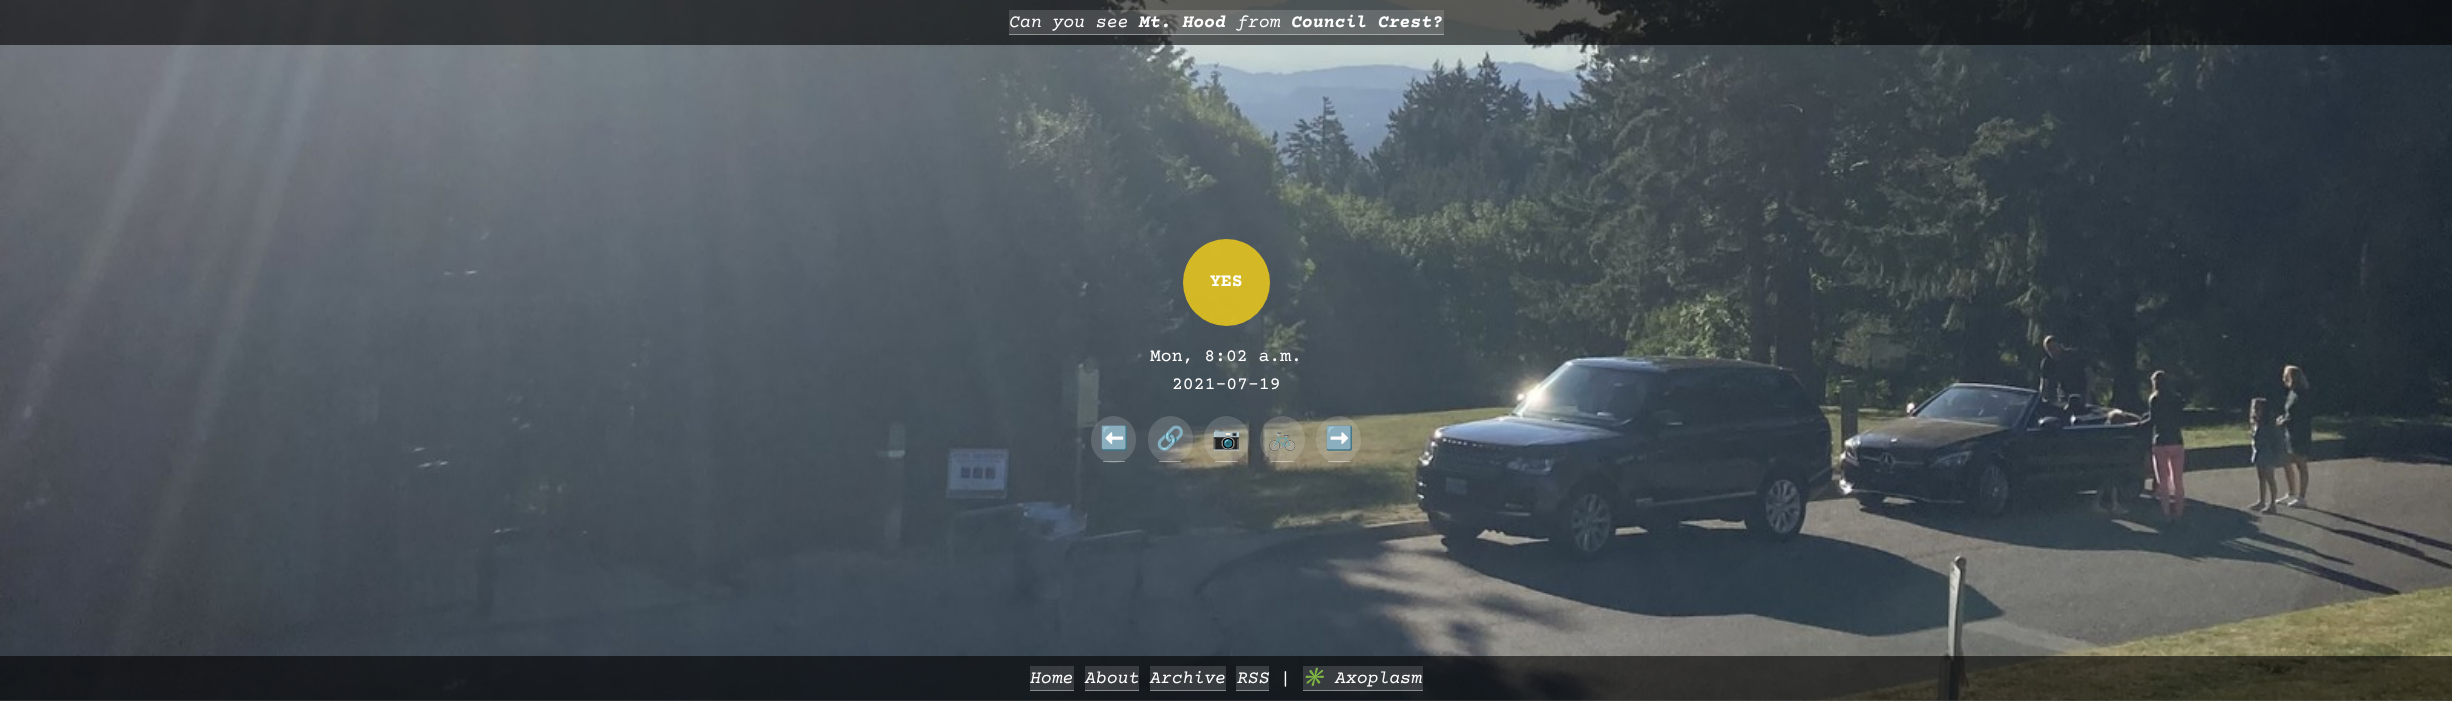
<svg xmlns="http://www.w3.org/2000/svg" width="2452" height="701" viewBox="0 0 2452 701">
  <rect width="100%" height="100%" fill="rgb(255,255,255)"/>
  <image x="0" y="0" width="2452" height="701" href="pic1.png"/>
  <rect x="0" y="0" width="2452" height="45" fill="rgba(0,0,0,0.6)"/>
  <rect x="1009" y="10" width="130" height="25" fill="rgba(255,255,255,0.15)"/>
  <text x="1009" y="27" font-family="Courier Prime" font-size="18.1" font-style="italic" fill="rgb(255,255,255)">Can you see</text>
  <rect x="1009" y="34" width="130" height="1" fill="rgba(255,255,255,0.4)"/>
  <rect x="1139" y="10" width="87" height="25" fill="rgba(255,255,255,0.15)"/>
  <text x="1139" y="27" font-family="Courier Prime" font-size="18.1" font-weight="bold" font-style="italic" fill="rgb(255,255,255)">Mt. Hood</text>
  <rect x="1139" y="34" width="87" height="1" fill="rgba(255,255,255,0.4)"/>
  <rect x="1226" y="10" width="65" height="24" fill="rgba(255,255,255,0.15)"/>
  <text x="1237" y="27" font-family="Courier Prime" font-size="18.1" font-style="italic" fill="rgb(255,255,255)">from</text>
  <rect x="1226" y="34" width="65" height="1" fill="rgb(165,168,168)"/>
  <rect x="1291" y="10" width="153" height="25" fill="rgba(255,255,255,0.15)"/>
  <text x="1291" y="27" font-family="Courier Prime" font-size="18.1" font-weight="bold" font-style="italic" fill="rgb(255,255,255)">Council Crest?</text>
  <rect x="1291" y="34" width="153" height="1" fill="rgba(255,255,255,0.4)"/>
  <circle cx="1226.5" cy="282.5" r="43.5" fill="rgba(247,209,24,0.8)"/>
  <text x="1210" y="286" font-family="Courier Prime" font-size="18.1" font-weight="bold" fill="rgb(255,255,255)">YES</text>
  <g font-family="Courier Prime" font-size="18.1" fill="rgb(255,255,255)">
    <text x="1150" y="361">Mon, 8:02 a.m.</text>
    <text x="1172" y="389">2021-07-19</text>
  </g>
  <rect x="1091" y="416" width="45" height="47" rx="22.5" fill="rgba(255,255,255,0.15)"/>
  <rect x="1103" y="461" width="22" height="1" fill="rgba(255,255,255,0.4)"/>
  <text x="1100" y="446" font-family="Noto Color Emoji" font-size="23" fill="rgb(255,255,255)">⬅️</text>
  <rect x="1148" y="416" width="45" height="47" rx="22.5" fill="rgba(255,255,255,0.15)"/>
  <rect x="1159" y="461" width="22" height="1" fill="rgba(255,255,255,0.4)"/>
  <text x="1156" y="446" font-family="Noto Color Emoji" font-size="23" fill="rgb(255,255,255)">🔗</text>
  <rect x="1204" y="416" width="45" height="47" rx="22.5" fill="rgba(255,255,255,0.15)"/>
  <rect x="1215" y="461" width="23" height="1" fill="rgba(255,255,255,0.4)"/>
  <text x="1212" y="446" font-family="Noto Color Emoji" font-size="23" fill="rgb(255,255,255)">📷</text>
  <rect x="1260" y="416" width="45" height="47" rx="22.5" fill="rgba(255,255,255,0.15)"/>
  <rect x="1271" y="461" width="23" height="1" fill="rgba(255,255,255,0.4)"/>
  <text x="1268" y="446" font-family="Noto Color Emoji" font-size="23" fill="rgb(255,255,255)">🚲</text>
  <rect x="1316" y="416" width="45" height="47" rx="22.5" fill="rgba(255,255,255,0.15)"/>
  <rect x="1328" y="461" width="22" height="1" fill="rgba(255,255,255,0.4)"/>
  <text x="1325" y="446" font-family="Noto Color Emoji" font-size="23" fill="rgb(255,255,255)">➡️</text>
  <rect x="0" y="656" width="2452" height="45" fill="rgba(0,0,0,0.6)"/>
  <rect x="1030" y="666" width="44" height="24" fill="rgba(255,255,255,0.15)"/>
  <text x="1030" y="683" font-family="Courier Prime" font-size="18.1" font-style="italic" fill="rgb(255,255,255)">Home</text>
  <rect x="1030" y="690" width="44" height="1" fill="rgb(136,139,141)"/>
  <rect x="1085" y="666" width="54" height="24" fill="rgba(255,255,255,0.15)"/>
  <text x="1085" y="683" font-family="Courier Prime" font-size="18.1" font-style="italic" fill="rgb(255,255,255)">About</text>
  <rect x="1085" y="690" width="54" height="1" fill="rgb(136,138,141)"/>
  <rect x="1150" y="666" width="76" height="24" fill="rgba(255,255,255,0.15)"/>
  <text x="1150" y="683" font-family="Courier Prime" font-size="18.1" font-style="italic" fill="rgb(255,255,255)">Archive</text>
  <rect x="1150" y="690" width="76" height="1" fill="rgb(136,138,141)"/>
  <rect x="1236" y="666" width="33" height="24" fill="rgb(57,62,66)"/>
  <text x="1237" y="683" font-family="Courier Prime" font-size="18.1" font-style="italic" fill="rgb(255,255,255)">RSS</text>
  <rect x="1236" y="690" width="33" height="1" fill="rgb(136,139,142)"/>
  <text x="1280" y="683" font-family="Courier Prime" font-size="18.1" fill="rgb(255,255,255)">|</text>
  <rect x="1303" y="666" width="120" height="25" fill="rgba(255,255,255,0.15)"/>
  <text x="1302" y="683" font-family="Noto Color Emoji" font-size="18.1" font-style="italic" fill="rgb(255,255,255)">✳️</text>
  <text x="1335" y="683" font-family="Courier Prime" font-size="18.1" font-style="italic" fill="rgb(255,255,255)">Axoplasm</text>
  <rect x="1303" y="690" width="120" height="1" fill="rgba(255,255,255,0.4)"/>
</svg>
